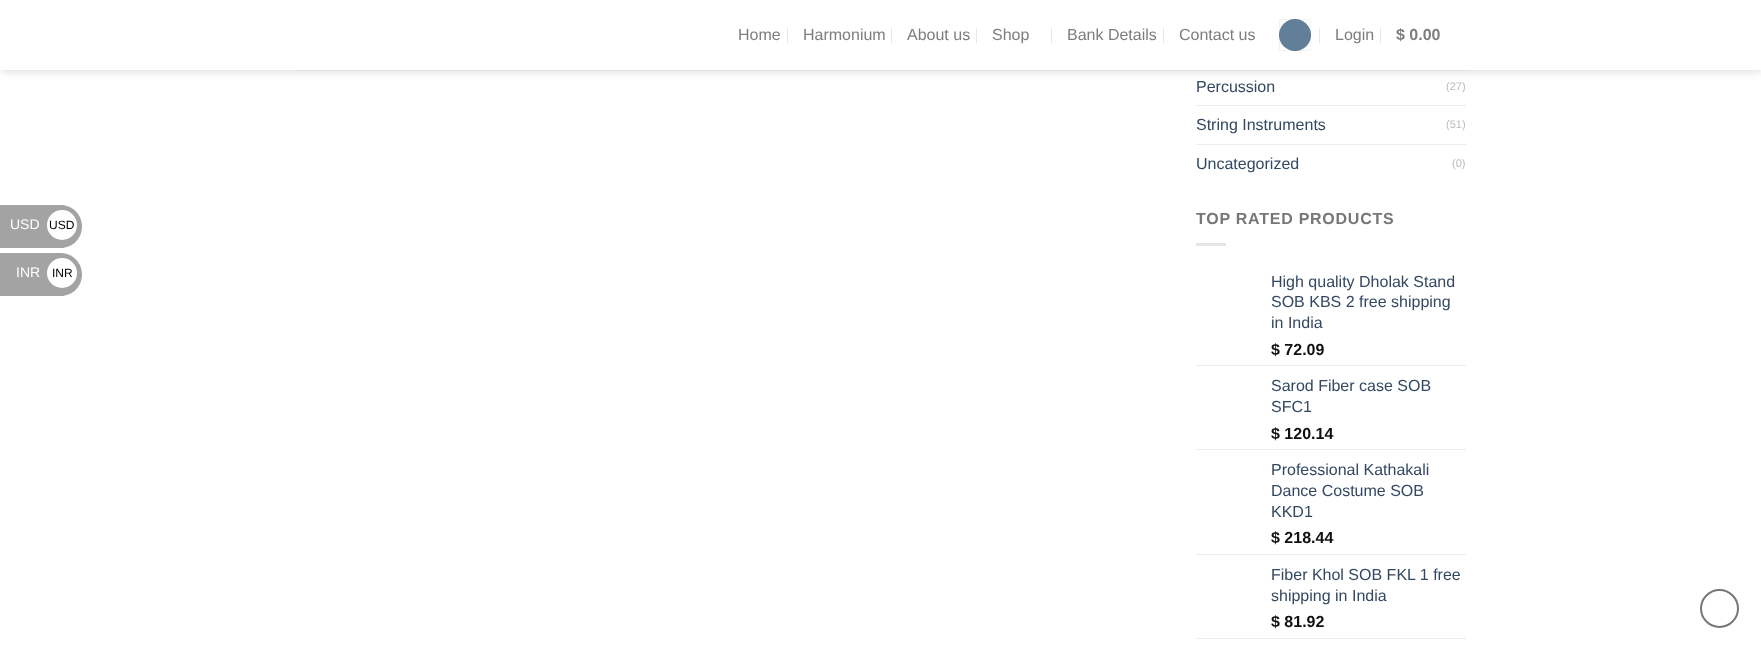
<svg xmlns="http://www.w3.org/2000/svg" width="1761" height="648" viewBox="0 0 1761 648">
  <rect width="100%" height="100%" fill="rgb(255,255,255)"/>
  <path d="M-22 205H60.5C72.5 205 82 214.5 82 226.5C82 238.5 72.5 248 60.5 248H-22Z" fill="rgb(163,163,163)"/>
  <text x="10" y="229" font-family="Liberation Sans" font-size="14" fill="rgb(255,255,255)">USD</text>
  <circle cx="62" cy="225" r="15" fill="rgb(255,255,255)"/>
  <text x="49" y="229" font-family="Liberation Sans" font-size="12" fill="rgb(0,0,0)">USD</text>
  <path d="M-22 253H60.5C72.5 253 82 262.5 82 274.5C82 286.5 72.5 296 60.5 296H-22Z" fill="rgb(163,163,163)"/>
  <text x="16" y="277" font-family="Liberation Sans" font-size="14" fill="rgb(255,255,255)">INR</text>
  <circle cx="62" cy="273" r="15" fill="rgb(255,255,255)"/>
  <text x="52" y="277" font-family="Liberation Sans" font-size="12" fill="rgb(0,0,0)">INR</text>
  <rect x="1" y="1" width="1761" height="70" fill="rgba(0,0,0,0.15)" filter="blur(5px)"/>
  <rect x="0" y="0" width="1761" height="70" fill="rgb(255,255,255)"/>
  <text x="738" y="40" font-family="Liberation Sans" font-size="16" fill="rgb(125,125,125)">Home</text>
  <rect x="787" y="28" width="1" height="15" fill="rgb(230,230,230)"/>
  <text x="803" y="40" font-family="Liberation Sans" font-size="16" fill="rgb(125,125,125)">Harmonium</text>
  <rect x="891" y="28" width="1" height="15" fill="rgb(230,230,230)"/>
  <text x="907" y="40" font-family="Liberation Sans" font-size="16" fill="rgb(125,125,125)">About us</text>
  <rect x="976" y="28" width="1" height="15" fill="rgb(230,230,230)"/>
  <text x="992" y="40" font-family="Liberation Sans" font-size="16" fill="rgb(125,125,125)">Shop</text>
  <rect x="1051" y="28" width="1" height="15" fill="rgb(230,230,230)"/>
  <text x="1067" y="40" font-family="Liberation Sans" font-size="16" fill="rgb(125,125,125)">Bank Details</text>
  <rect x="1163" y="28" width="1" height="15" fill="rgb(230,230,230)"/>
  <text x="1179" y="40" font-family="Liberation Sans" font-size="16" fill="rgb(125,125,125)">Contact us</text>
  <circle cx="1295" cy="35" r="16" fill="rgb(98,127,154)"/>
  <rect x="1279.5" y="19.5" width="31" height="31" fill="none" stroke="rgba(0,0,0,0.05)"/>
  <rect x="1319" y="28" width="1" height="15" fill="rgb(230,230,230)"/>
  <text x="1335" y="40" font-family="Liberation Sans" font-size="16" fill="rgb(125,125,125)">Login</text>
  <rect x="1380" y="28" width="1" height="15" fill="rgb(230,230,230)"/>
  <text x="1396" y="40" font-family="Liberation Sans" font-size="16" font-weight="bold" fill="rgb(125,125,125)">$ 0.00</text>
  <rect x="296" y="70" width="1170" height="1" fill="rgb(223,223,223)"/>
  <text x="1196" y="92" font-family="Liberation Sans" font-size="16" fill="rgb(51,72,98)">Percussion</text>
  <text x="1446" y="90" font-family="Liberation Sans" font-size="11" fill="rgb(187,187,187)">(27)</text>
  <rect x="1196" y="105" width="270" height="1" fill="rgb(236,236,236)"/>
  <text x="1196" y="130" font-family="Liberation Sans" font-size="16" fill="rgb(51,72,98)">String Instruments</text>
  <text x="1446" y="128" font-family="Liberation Sans" font-size="11" fill="rgb(187,187,187)">(51)</text>
  <rect x="1196" y="144" width="270" height="1" fill="rgb(236,236,236)"/>
  <text x="1196" y="169" font-family="Liberation Sans" font-size="16" fill="rgb(51,72,98)">Uncategorized</text>
  <text x="1452" y="167" font-family="Liberation Sans" font-size="11" fill="rgb(187,187,187)">(0)</text>
  <text x="1196" y="224" font-family="Liberation Sans" font-size="16" font-weight="bold" letter-spacing="0.75" fill="rgb(119,119,119)">TOP RATED PRODUCTS</text>
  <rect x="1196" y="243" width="30" height="3" fill="rgb(230,230,230)"/>
  <g font-family="Liberation Sans" font-size="16" fill="rgb(51,72,98)">
    <text>
      <tspan x="1271" y="287">High quality Dholak Stand</tspan>
      <tspan x="1271" y="307">SOB KBS 2 free shipping</tspan>
      <tspan x="1271" y="328">in India</tspan>
    </text>
  </g>
  <text x="1271" y="355" font-family="Liberation Sans" font-size="16" font-weight="bold" fill="rgb(17,17,17)">$ 72.09</text>
  <rect x="1196" y="365" width="270" height="1" fill="rgb(236,236,236)"/>
  <g font-family="Liberation Sans" font-size="16" fill="rgb(51,72,98)">
    <text>
      <tspan x="1271" y="391">Sarod Fiber case SOB</tspan>
      <tspan x="1271" y="412">SFC1</tspan>
    </text>
  </g>
  <text x="1271" y="439" font-family="Liberation Sans" font-size="16" font-weight="bold" fill="rgb(17,17,17)">$ 120.14</text>
  <rect x="1196" y="449" width="270" height="1" fill="rgb(236,236,236)"/>
  <g font-family="Liberation Sans" font-size="16" fill="rgb(51,72,98)">
    <text>
      <tspan x="1271" y="475">Professional Kathakali</tspan>
      <tspan x="1271" y="496">Dance Costume SOB</tspan>
      <tspan x="1271" y="517">KKD1</tspan>
    </text>
  </g>
  <text x="1271" y="543" font-family="Liberation Sans" font-size="16" font-weight="bold" fill="rgb(17,17,17)">$ 218.44</text>
  <rect x="1196" y="554" width="270" height="1" fill="rgb(236,236,236)"/>
  <g font-family="Liberation Sans" font-size="16" fill="rgb(51,72,98)">
    <text>
      <tspan x="1271" y="580">Fiber Khol SOB FKL 1 free</tspan>
      <tspan x="1271" y="601">shipping in India</tspan>
    </text>
  </g>
  <text x="1271" y="627" font-family="Liberation Sans" font-size="16" font-weight="bold" fill="rgb(17,17,17)">$ 81.92</text>
  <rect x="1196" y="638" width="270" height="1" fill="rgb(236,236,236)"/>
  <circle cx="1719.5" cy="608.5" r="18.5" fill="none" stroke="rgb(119,119,119)" stroke-width="2"/>
</svg>
